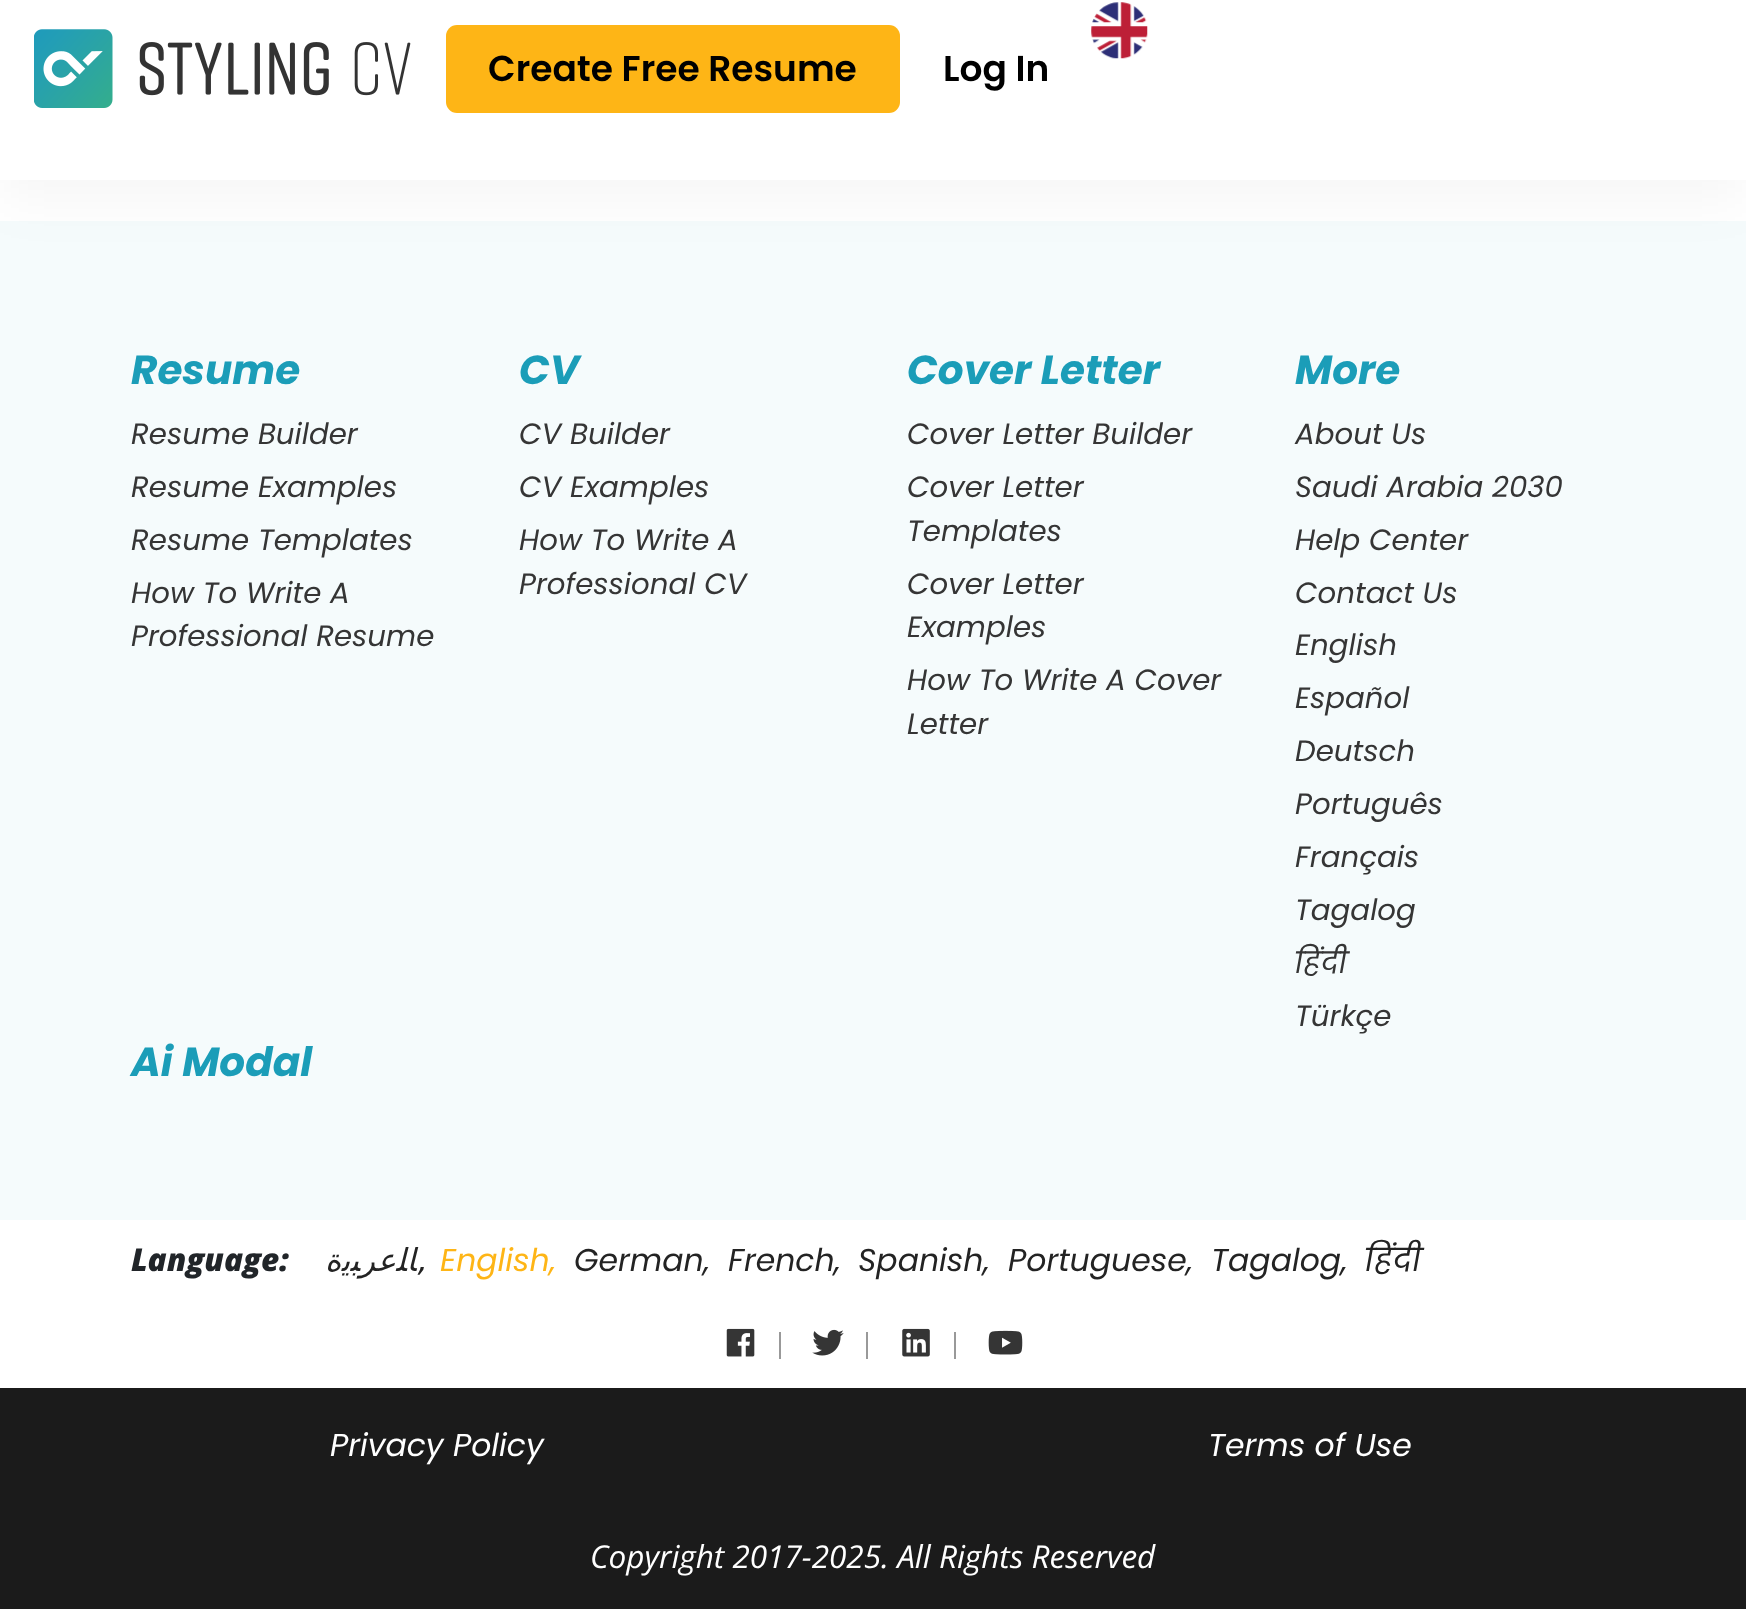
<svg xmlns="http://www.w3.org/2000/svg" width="1746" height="1609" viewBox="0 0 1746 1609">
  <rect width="100%" height="100%" fill="rgb(255,255,255)"/>
  <rect x="0" y="221" width="1746" height="999" fill="rgb(245,251,252)"/>
  <rect x="0" y="18" width="1746" height="180" fill="rgba(0,0,0,0.04)" filter="blur(28px)"/>
  <rect x="0" y="0" width="1746" height="180" fill="rgb(255,255,255)"/>
  <image x="34" y="29" width="377" height="79" href="pic1.png"/>
  <image x="1091" y="2" width="57" height="57" href="pic2.png"/>
  <rect x="446" y="25" width="454" height="88" rx="11" fill="rgb(254,181,22)"/>
  <g font-family="Poppins" font-size="36" font-weight="600" fill="rgb(0,0,0)">
    <text x="488" y="81">Create Free Resume</text>
    <text x="943" y="81">Log In</text>
  </g>
  <text x="131" y="384" font-family="Poppins" font-size="40.5" font-weight="bold" font-style="italic" fill="rgb(27,157,184)">Resume</text>
  <g font-family="Poppins" font-size="29.25" font-style="italic" fill="rgb(53,53,53)">
    <text>
      <tspan x="131" y="444">Resume Builder</tspan>
      <tspan x="131" y="497">Resume Examples</tspan>
      <tspan x="131" y="550">Resume Templates</tspan>
      <tspan x="131" y="603">How To Write A</tspan>
      <tspan x="131" y="646">Professional Resume</tspan>
    </text>
  </g>
  <text x="519" y="384" font-family="Poppins" font-size="40.5" font-weight="bold" font-style="italic" fill="rgb(27,157,184)">CV</text>
  <g font-family="Poppins" font-size="29.25" font-style="italic" fill="rgb(53,53,53)">
    <text>
      <tspan x="519" y="444">CV Builder</tspan>
      <tspan x="519" y="497">CV Examples</tspan>
      <tspan x="519" y="550">How To Write A</tspan>
      <tspan x="519" y="594">Professional CV</tspan>
    </text>
  </g>
  <text x="907" y="384" font-family="Poppins" font-size="40.5" font-weight="bold" font-style="italic" fill="rgb(27,157,184)">Cover Letter</text>
  <g font-family="Poppins" font-size="29.25" font-style="italic" fill="rgb(53,53,53)">
    <text>
      <tspan x="907" y="444">Cover Letter Builder</tspan>
      <tspan x="907" y="497">Cover Letter</tspan>
      <tspan x="907" y="541">Templates</tspan>
      <tspan x="907" y="594">Cover Letter</tspan>
      <tspan x="907" y="637">Examples</tspan>
      <tspan x="907" y="690">How To Write A Cover</tspan>
      <tspan x="907" y="734">Letter</tspan>
    </text>
  </g>
  <text x="1295" y="384" font-family="Poppins" font-size="40.5" font-weight="bold" font-style="italic" fill="rgb(27,157,184)">More</text>
  <g font-family="Poppins" font-size="29.25" font-style="italic" fill="rgb(53,53,53)">
    <text>
      <tspan x="1295" y="444">About Us</tspan>
      <tspan x="1295" y="497">Saudi Arabia 2030</tspan>
      <tspan x="1295" y="550">Help Center</tspan>
      <tspan x="1295" y="603">Contact Us</tspan>
      <tspan x="1295" y="655">English</tspan>
      <tspan x="1295" y="708">Español</tspan>
      <tspan x="1295" y="761">Deutsch</tspan>
      <tspan x="1295" y="814">Português</tspan>
      <tspan x="1295" y="867">Français</tspan>
      <tspan x="1295" y="920">Tagalog</tspan>
      <tspan x="1295" y="973">हिंदी</tspan>
      <tspan x="1295" y="1026">Türkçe</tspan>
    </text>
  </g>
  <text x="131" y="1076" font-family="Poppins" font-size="40.5" font-weight="bold" font-style="italic" fill="rgb(27,157,184)">Ai Modal</text>
  <text x="131" y="1271" font-family="Open Sans" font-size="31.5" font-weight="800" font-style="italic" fill="rgb(33,37,41)">Language:</text>
  <text x="416" y="1271" font-family="DejaVu Sans" font-size="31.5" font-style="italic" direction="rtl" fill="rgb(35,35,35)">ﺎﻠﻋﺮﺒﻳﺓ</text>
  <text x="416" y="1271" font-family="DejaVu Sans" font-size="31.5" font-style="italic" fill="rgb(35,35,35)">,</text>
  <text x="440" y="1271" font-family="Poppins" font-size="31.5" font-style="italic" fill="rgb(254,181,22)">English,</text>
  <g font-family="Poppins" font-size="31.5" font-style="italic" fill="rgb(35,35,35)">
    <text x="574" y="1271">German,</text>
    <text x="728" y="1271">French,</text>
    <text x="858" y="1271">Spanish,</text>
    <text x="1008" y="1271">Portuguese,</text>
    <text x="1211" y="1271">Tagalog,</text>
    <text x="1365" y="1271">हिंदी</text>
  </g>
  <image x="726" y="1328" width="29" height="29" href="pic3.png"/>
  <rect x="779" y="1332" width="2" height="27" fill="rgb(153,153,153)"/>
  <image x="812" y="1329" width="32" height="27" href="pic4.png"/>
  <rect x="866" y="1332" width="2" height="27" fill="rgb(153,153,153)"/>
  <image x="902" y="1328" width="28" height="29" href="pic5.png"/>
  <rect x="954" y="1332" width="2" height="27" fill="rgb(153,153,153)"/>
  <image x="988" y="1330" width="35" height="25" href="pic6.png"/>
  <rect x="0" y="1388" width="1746" height="221" fill="rgb(27,27,27)"/>
  <g font-family="Poppins" font-size="31.5" font-style="italic" fill="rgb(255,255,255)">
    <text x="330" y="1456">Privacy Policy</text>
    <text x="1208" y="1456">Terms of Use</text>
  </g>
  <text x="590" y="1568" font-family="Open Sans" font-size="31.5" font-style="italic" fill="rgb(255,255,255)">Copyright 2017-2025. All Rights Reserved</text>
</svg>
